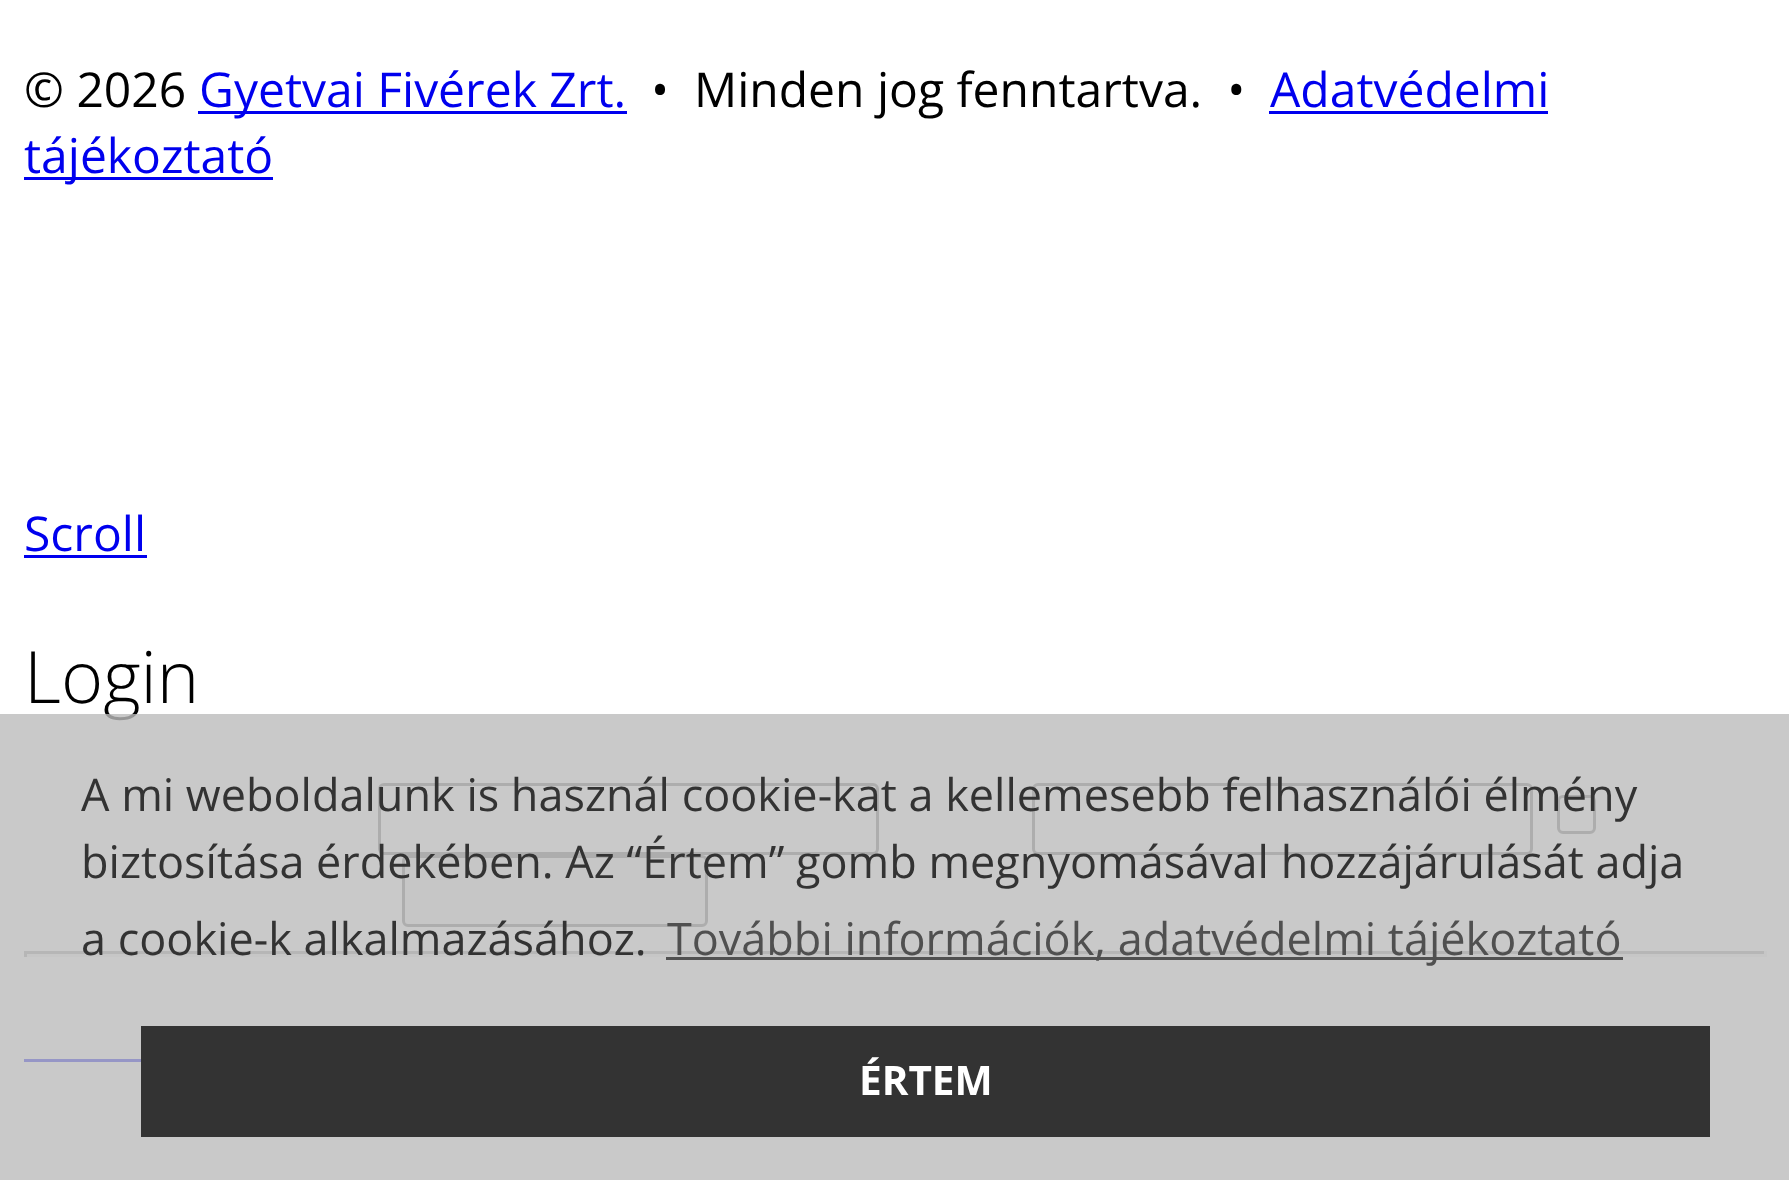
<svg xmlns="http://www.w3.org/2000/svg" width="1789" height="1180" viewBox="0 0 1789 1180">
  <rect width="100%" height="100%" fill="rgb(255,255,255)"/>
  <text x="24" y="107" font-family="Open Sans" font-size="48" fill="rgb(0,0,0)">© 2026</text>
  <rect x="198" y="111" width="429" height="3" fill="rgb(0,0,238)"/>
  <text x="199" y="107" font-family="Open Sans" font-size="48" fill="rgb(0,0,238)">Gyetvai Fivérek Zrt.</text>
  <text x="651" y="107" font-family="Open Sans" font-size="48" fill="rgb(0,0,0)" xml:space="preserve">•  Minden jog fenntartva.  •</text>
  <text x="1270" y="107" font-family="Open Sans" font-size="48" fill="rgb(0,0,238)">Adatvédelmi</text>
  <rect x="1269" y="111" width="279" height="3" fill="rgb(0,0,238)"/>
  <rect x="24" y="177" width="249" height="3" fill="rgb(0,0,238)"/>
  <g font-family="Open Sans" font-size="48" fill="rgb(0,0,238)">
    <text x="24" y="173">tájékoztató</text>
    <text x="24" y="551">Scroll</text>
  </g>
  <rect x="24" y="555" width="123" height="3" fill="rgb(0,0,238)"/>
  <text x="24" y="703" font-family="Open Sans" font-size="72" font-weight="300" fill="rgb(0,0,0)">Login</text>
  <rect x="379.5" y="784.5" width="498" height="69" rx="4.5" fill="none" stroke="rgb(118,118,118)" stroke-width="3"/>
  <rect x="1033.5" y="784.5" width="498" height="69" rx="4.5" fill="none" stroke="rgb(118,118,118)" stroke-width="3"/>
  <rect x="1558.5" y="796.5" width="36" height="36" rx="4.5" fill="none" stroke="rgb(118,118,118)" stroke-width="3"/>
  <rect x="403.5" y="856.5" width="303" height="69" rx="4.5" fill="rgb(239,239,239)" stroke="rgb(118,118,118)" stroke-width="3"/>
  <rect x="24" y="951" width="1743" height="3" fill="rgb(159,159,159)"/>
  <rect x="1764" y="951" width="3" height="6" fill="rgb(238,238,238)"/>
  <rect x="24" y="954" width="1743" height="3" fill="rgb(238,238,238)"/>
  <rect x="24" y="951" width="3" height="6" fill="rgb(159,159,159)"/>
  <rect x="24" y="1059" width="117" height="3" fill="rgb(0,0,238)"/>
  <rect x="0" y="714" width="1789" height="466" fill="rgba(188,188,188,0.8)"/>
  <g font-family="Open Sans" font-size="45" fill="rgb(51,51,51)">
    <text>
      <tspan x="81" y="811">A mi weboldalunk is használ cookie-kat a kellemesebb felhasználói élmény</tspan>
      <tspan x="81" y="878">biztosítása érdekében. Az “Értem” gomb megnyomásával hozzájárulását adja</tspan>
      <tspan x="81" y="955">a cookie-k alkalmazásához.</tspan>
    </text>
  </g>
  <rect x="666" y="957" width="957" height="3" fill="rgb(81,81,81)"/>
  <text x="667" y="955" font-family="Open Sans" font-size="45" fill="rgb(80,80,80)">További információk, adatvédelmi tájékoztató</text>
  <rect x="141" y="1026" width="1569" height="111" fill="rgb(51,51,51)"/>
  <text x="859" y="1095" font-family="Open Sans" font-size="40.5" font-weight="bold" fill="rgb(255,255,255)">ÉRTEM</text>
</svg>
